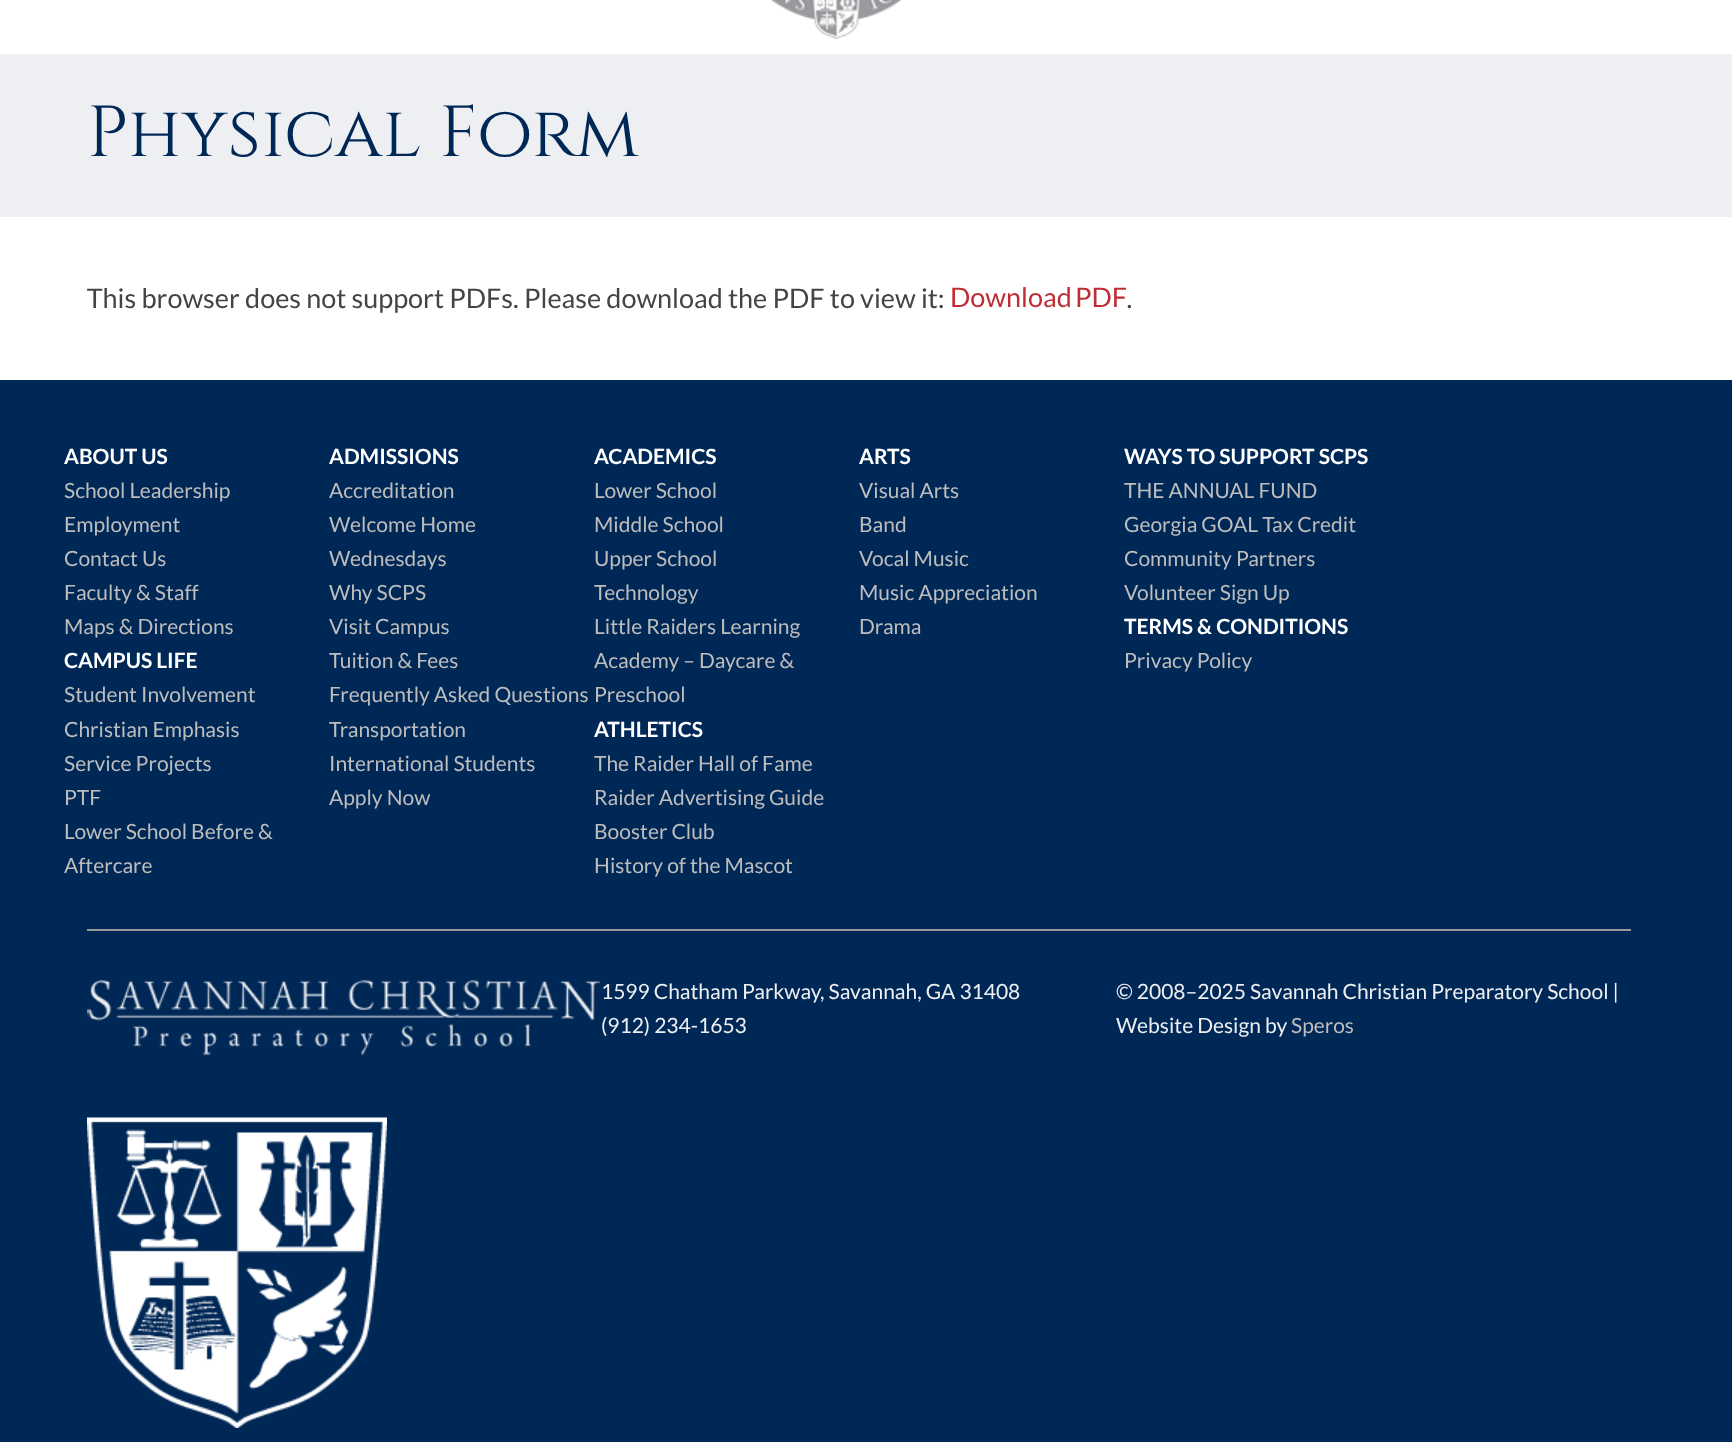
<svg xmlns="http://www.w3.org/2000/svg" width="1732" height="1442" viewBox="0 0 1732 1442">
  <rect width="100%" height="100%" fill="rgb(255,255,255)"/>
  <image x="771" y="0" width="131" height="39" href="pic1.png"/>
  <rect x="0" y="54" width="1732" height="163" fill="rgb(237,239,242)"/>
  <text x="87" y="156" font-family="Cinzel" font-size="72" fill="rgb(0,40,86)">Physical Form</text>
  <image x="87" y="288" width="1045" height="25" href="pic2.png"/>
  <text x="950" y="307" word-spacing="-2" font-family="Lato" font-size="27" fill="rgb(191,46,55)">Download PDF</text>
  <rect x="0" y="380" width="1732" height="1062" fill="rgb(0,40,86)"/>
  <text x="64" y="464" font-family="Lato" font-size="21" font-weight="bold" fill="rgb(255,255,255)">ABOUT US</text>
  <g font-family="Lato" font-size="21" fill="rgb(189,189,189)">
    <text>
      <tspan x="64" y="498">School Leadership</tspan>
      <tspan x="64" y="532">Employment</tspan>
      <tspan x="64" y="566">Contact Us</tspan>
      <tspan x="64" y="600">Faculty &amp; Staff</tspan>
      <tspan x="64" y="634">Maps &amp; Directions</tspan>
    </text>
  </g>
  <text x="64" y="668" font-family="Lato" font-size="21" font-weight="bold" fill="rgb(255,255,255)">CAMPUS LIFE</text>
  <g font-family="Lato" font-size="21" fill="rgb(189,189,189)">
    <text>
      <tspan x="64" y="702">Student Involvement</tspan>
      <tspan x="64" y="737">Christian Emphasis</tspan>
      <tspan x="64" y="771">Service Projects</tspan>
      <tspan x="64" y="805">PTF</tspan>
      <tspan x="64" y="839">Lower School Before &amp;</tspan>
      <tspan x="64" y="873">Aftercare</tspan>
    </text>
  </g>
  <text x="329" y="464" font-family="Lato" font-size="21" font-weight="bold" fill="rgb(255,255,255)">ADMISSIONS</text>
  <g font-family="Lato" font-size="21" fill="rgb(189,189,189)">
    <text>
      <tspan x="329" y="498">Accreditation</tspan>
      <tspan x="329" y="532">Welcome Home</tspan>
      <tspan x="329" y="566">Wednesdays</tspan>
      <tspan x="329" y="600">Why SCPS</tspan>
      <tspan x="329" y="634">Visit Campus</tspan>
      <tspan x="329" y="668">Tuition &amp; Fees</tspan>
      <tspan x="329" y="702">Frequently Asked Questions</tspan>
      <tspan x="329" y="737">Transportation</tspan>
      <tspan x="329" y="771">International Students</tspan>
      <tspan x="329" y="805">Apply Now</tspan>
    </text>
  </g>
  <text x="594" y="464" font-family="Lato" font-size="21" font-weight="bold" fill="rgb(255,255,255)">ACADEMICS</text>
  <g font-family="Lato" font-size="21" fill="rgb(189,189,189)">
    <text>
      <tspan x="594" y="498">Lower School</tspan>
      <tspan x="594" y="532">Middle School</tspan>
      <tspan x="594" y="566">Upper School</tspan>
      <tspan x="594" y="600">Technology</tspan>
      <tspan x="594" y="634">Little Raiders Learning</tspan>
      <tspan x="594" y="668">Academy – Daycare &amp;</tspan>
      <tspan x="594" y="702">Preschool</tspan>
    </text>
  </g>
  <text x="594" y="737" font-family="Lato" font-size="21" font-weight="bold" fill="rgb(255,255,255)">ATHLETICS</text>
  <g font-family="Lato" font-size="21" fill="rgb(189,189,189)">
    <text>
      <tspan x="594" y="771">The Raider Hall of Fame</tspan>
      <tspan x="594" y="805">Raider Advertising Guide</tspan>
      <tspan x="594" y="839">Booster Club</tspan>
      <tspan x="594" y="873">History of the Mascot</tspan>
    </text>
  </g>
  <text x="859" y="464" font-family="Lato" font-size="21" font-weight="bold" fill="rgb(255,255,255)">ARTS</text>
  <g font-family="Lato" font-size="21" fill="rgb(189,189,189)">
    <text>
      <tspan x="859" y="498">Visual Arts</tspan>
      <tspan x="859" y="532">Band</tspan>
      <tspan x="859" y="566">Vocal Music</tspan>
      <tspan x="859" y="600">Music Appreciation</tspan>
      <tspan x="859" y="634">Drama</tspan>
    </text>
  </g>
  <text x="1124" y="464" font-family="Lato" font-size="21" font-weight="bold" fill="rgb(255,255,255)">WAYS TO SUPPORT SCPS</text>
  <g font-family="Lato" font-size="21" fill="rgb(189,189,189)">
    <text>
      <tspan x="1124" y="498">THE ANNUAL FUND</tspan>
      <tspan x="1124" y="532">Georgia GOAL Tax Credit</tspan>
      <tspan x="1124" y="566">Community Partners</tspan>
      <tspan x="1124" y="600">Volunteer Sign Up</tspan>
    </text>
  </g>
  <text x="1124" y="634" font-family="Lato" font-size="21" font-weight="bold" fill="rgb(255,255,255)">TERMS &amp; CONDITIONS</text>
  <text x="1124" y="668" font-family="Lato" font-size="21" fill="rgb(189,189,189)">Privacy Policy</text>
  <rect x="87" y="929" width="1544" height="2" fill="rgb(153,153,153)"/>
  <image x="87" y="980" width="514" height="76" href="pic3.png"/>
  <g font-family="Lato" font-size="21" fill="rgb(237,239,242)">
    <text>
      <tspan x="601" y="999">1599 Chatham Parkway, Savannah, GA 31408</tspan>
      <tspan x="601" y="1033">(912) 234-1653</tspan>
    </text>
    <text>
      <tspan x="1116" y="999">© 2008–2025 Savannah Christian Preparatory School |</tspan>
      <tspan x="1116" y="1033">Website Design by</tspan>
    </text>
  </g>
  <text x="1291" y="1033" font-family="Lato" font-size="21" fill="rgb(189,189,189)">Speros</text>
  <image x="87" y="1117" width="300" height="311" href="pic4.png"/>
</svg>
